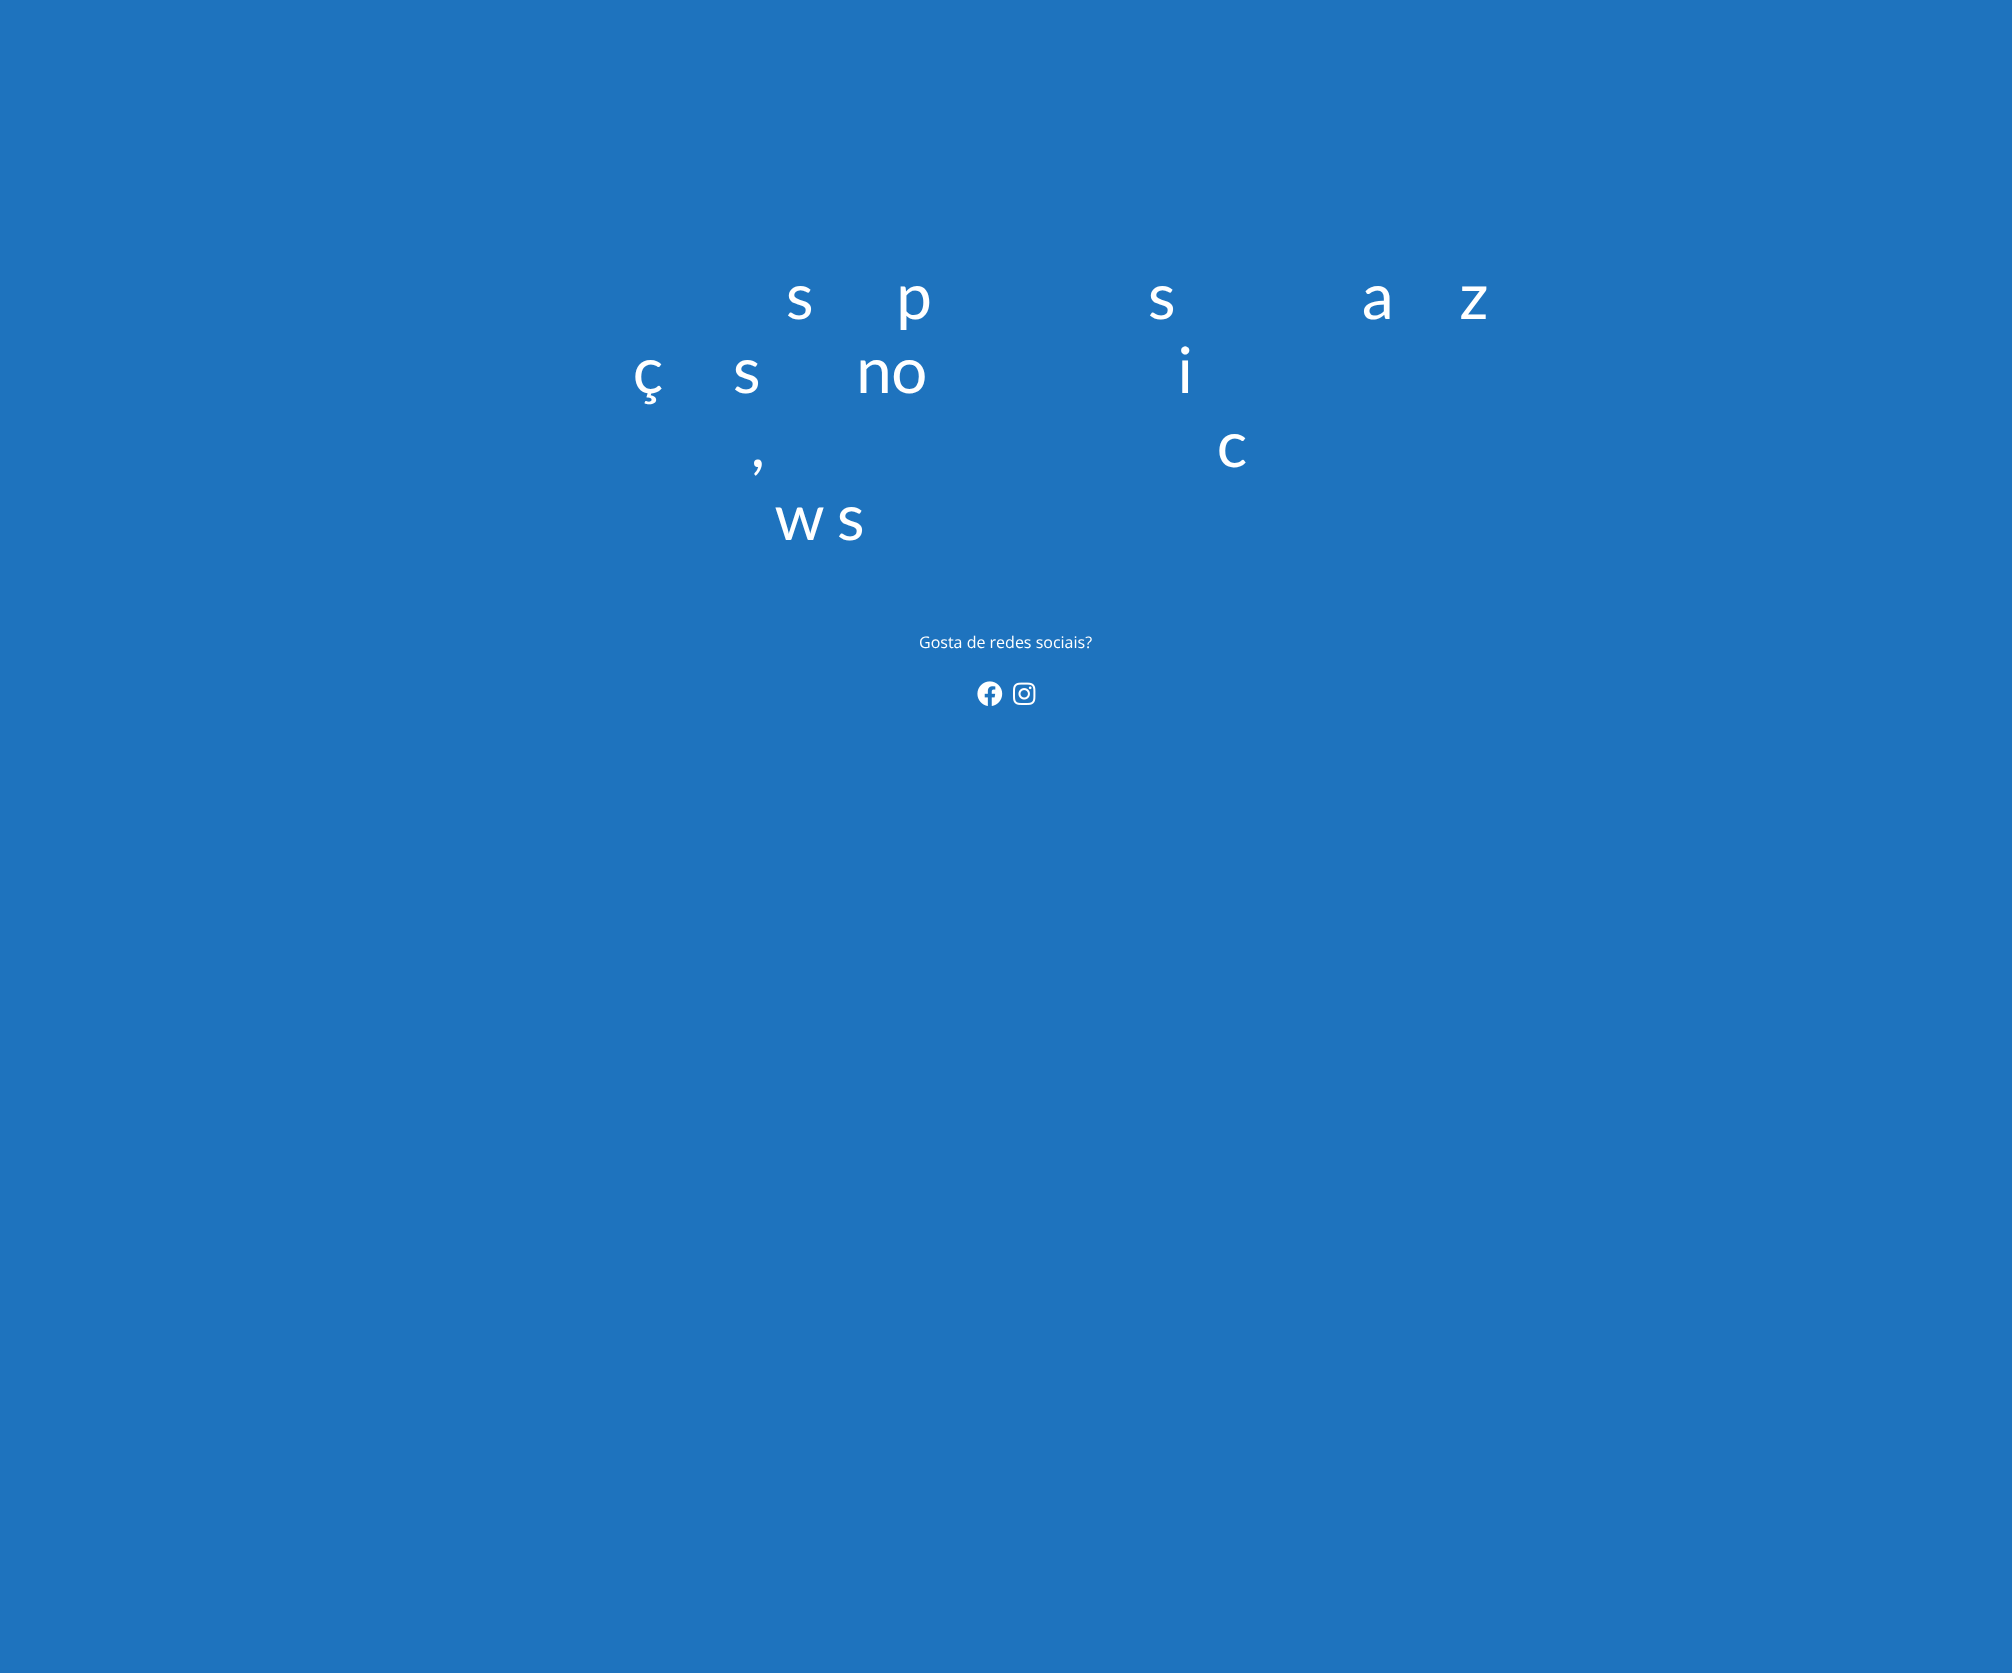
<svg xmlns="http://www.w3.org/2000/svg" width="2012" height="1673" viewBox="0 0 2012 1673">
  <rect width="100%" height="100%" fill="rgb(30,115,190)"/>
  <g font-family="Lato" font-size="64" fill="rgb(255,255,255)">
    <text x="786" y="319">s</text>
    <text x="896" y="319">p</text>
    <text x="1148" y="319">s</text>
    <text x="1361" y="319">a</text>
    <text x="1459" y="319">z</text>
    <text x="633" y="393">ç</text>
    <text x="733" y="393">s</text>
    <text x="856" y="393">no</text>
    <text x="1177" y="393">i</text>
    <text x="751" y="467">,</text>
    <text x="1217" y="467">c</text>
    <text x="775" y="540">w</text>
    <text x="837" y="540">s</text>
  </g>
  <text x="919" y="648" font-family="Open Sans" font-size="16" fill="rgb(255,255,255)">Gosta de redes sociais?</text>
  <image x="977" y="681" width="26" height="25" href="pic1.png"/>
  <image x="1013" y="682" width="23" height="23" href="pic2.png"/>
</svg>
